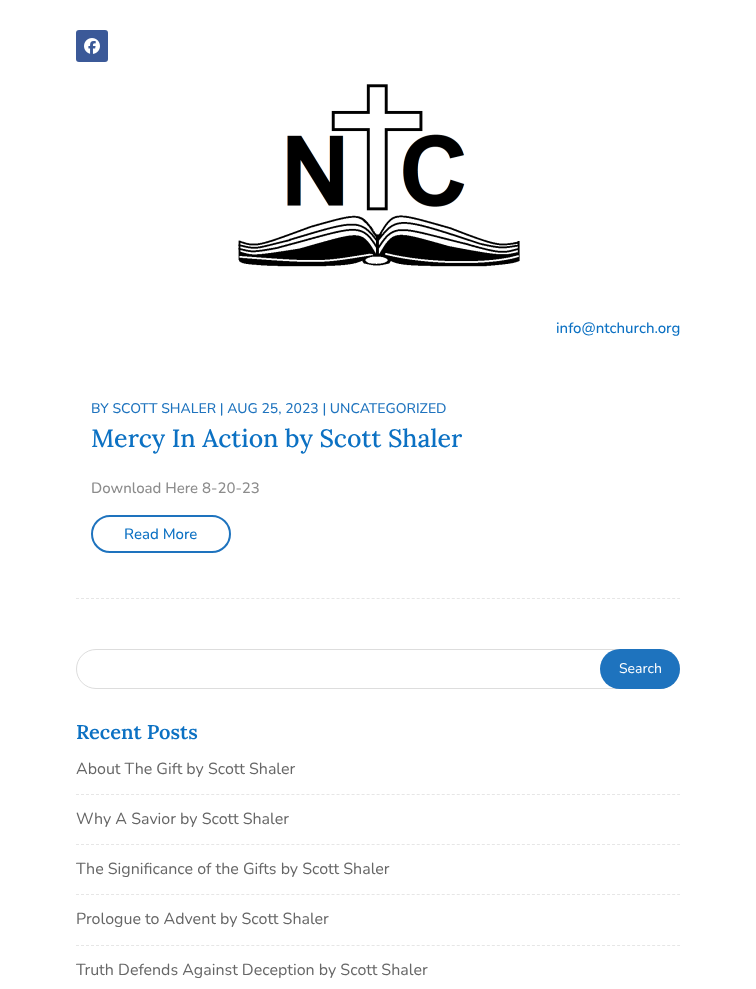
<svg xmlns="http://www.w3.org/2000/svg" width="756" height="989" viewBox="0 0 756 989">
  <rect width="100%" height="100%" fill="rgb(255,255,255)"/>
  <rect x="76" y="30" width="32" height="32" rx="3" fill="rgb(59,89,152)"/>
  <image x="84" y="38" width="16" height="16" href="pic1.png"/>
  <image x="238" y="84" width="282" height="183" href="pic2.png"/>
  <text x="556" y="333" font-family="Nunito" font-size="15" font-weight="200" fill="rgb(12,113,195)">info@ntchurch.org</text>
  <path d="M76 598.5H680" fill="none" stroke="rgb(230,230,230)" stroke-dasharray="3 2.01"/>
  <text x="91" y="413" font-family="Nunito" font-size="14" font-weight="200" fill="rgb(30,115,190)">BY SCOTT SHALER | AUG 25, 2023 | UNCATEGORIZED</text>
  <text x="91" y="447" font-family="Lora" font-size="25" font-weight="500" fill="rgb(12,113,195)">Mercy In Action by Scott Shaler</text>
  <text x="91" y="493" font-family="Nunito" font-size="15" font-weight="200" fill="rgb(140,140,140)">Download Here 8-20-23</text>
  <rect x="92" y="516" width="138" height="36" rx="18" fill="none" stroke="rgb(30,115,190)" stroke-width="2"/>
  <text x="124" y="539" font-family="Nunito" font-size="15" font-weight="200" fill="rgb(12,113,195)">Read More</text>
  <rect x="76.5" y="649.5" width="603" height="39" rx="19.5" fill="none" stroke="rgb(221,221,221)"/>
  <rect x="600" y="649" width="80" height="40" rx="20" fill="rgb(30,115,190)"/>
  <text x="619" y="673" font-family="'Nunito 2'" font-size="14" font-weight="200" fill="rgb(255,255,255)">Search</text>
  <text x="76" y="739" font-family="Lora" font-size="20" font-weight="600" fill="rgb(12,113,195)">Recent Posts</text>
  <text x="76" y="774" font-family="'Nunito 2'" font-size="16" font-weight="200" fill="rgb(102,102,102)">About The Gift by Scott Shaler</text>
  <path d="M76 794.5H680" fill="none" stroke="rgb(230,230,230)" stroke-dasharray="3 2.01"/>
  <text x="76" y="824" font-family="'Nunito 2'" font-size="16" font-weight="200" fill="rgb(102,102,102)">Why A Savior by Scott Shaler</text>
  <path d="M76 844.5H680" fill="none" stroke="rgb(230,230,230)" stroke-dasharray="3 2.01"/>
  <text x="76" y="874" font-family="'Nunito 2'" font-size="16" font-weight="200" fill="rgb(102,102,102)">The Significance of the Gifts by Scott Shaler</text>
  <path d="M76 894.5H680" fill="none" stroke="rgb(230,230,230)" stroke-dasharray="3 2.01"/>
  <text x="76" y="924" font-family="'Nunito 2'" font-size="16" font-weight="200" fill="rgb(102,102,102)">Prologue to Advent by Scott Shaler</text>
  <path d="M76 945.5H680" fill="none" stroke="rgb(230,230,230)" stroke-dasharray="3 2.01"/>
  <text x="76" y="975" font-family="'Nunito 2'" font-size="16" font-weight="200" fill="rgb(102,102,102)">Truth Defends Against Deception by Scott Shaler</text>
</svg>
